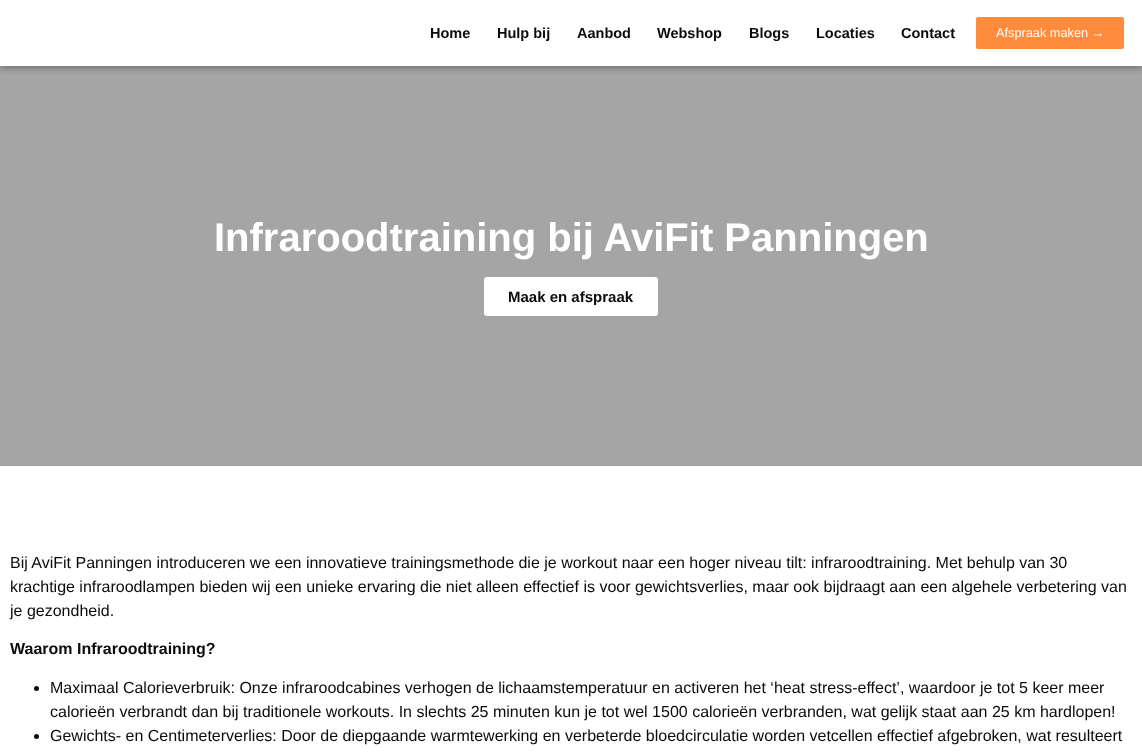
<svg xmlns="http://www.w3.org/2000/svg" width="1142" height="756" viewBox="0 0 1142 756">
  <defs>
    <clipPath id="clip1"><rect x="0" y="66" width="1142" height="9"/></clipPath>
  </defs>
  <rect width="100%" height="100%" fill="rgb(255,255,255)"/>
  <rect x="0" y="66" width="1142" height="400" fill="rgb(166,165,165)"/>
  <g clip-path="url(#clip1)">
    <rect x="0" y="0" width="1142" height="66" fill="rgba(0,0,0,0.5)" filter="blur(5px)"/>
  </g>
  <g font-family="Liberation Sans" font-size="14.5" font-weight="bold" fill="rgb(13,10,11)">
    <text x="430" y="38">Home</text>
    <text x="497" y="38">Hulp bij</text>
    <text x="577" y="38">Aanbod</text>
    <text x="657" y="38">Webshop</text>
    <text x="749" y="38">Blogs</text>
    <text x="816" y="38">Locaties</text>
    <text x="901" y="38">Contact</text>
  </g>
  <rect x="976" y="17" width="148" height="32" rx="2" fill="rgb(255,139,61)"/>
  <text x="996" y="37" font-family="Liberation Sans" font-size="12.75" fill="rgb(255,255,255)">Afspraak maken →</text>
  <text x="214" y="251" font-family="Liberation Sans" font-size="40" font-weight="bold" fill="rgb(255,255,255)">Infraroodtraining bij AviFit Panningen</text>
  <rect x="484" y="277" width="174" height="39" rx="3" fill="rgb(255,255,255)"/>
  <text x="508" y="302" font-family="Liberation Sans" font-size="15" font-weight="bold" fill="rgb(13,10,11)">Maak en afspraak</text>
  <g font-family="Liberation Sans" font-size="16" fill="rgb(13,10,11)">
    <text>
      <tspan x="10" y="568">Bij AviFit Panningen introduceren we een innovatieve trainingsmethode die je workout naar een hoger niveau tilt: infraroodtraining. Met behulp van 30</tspan>
      <tspan x="10" y="592">krachtige infraroodlampen bieden wij een unieke ervaring die niet alleen effectief is voor gewichtsverlies, maar ook bijdraagt aan een algehele verbetering van</tspan>
      <tspan x="10" y="616">je gezondheid.</tspan>
    </text>
  </g>
  <text x="10" y="654" font-family="Liberation Sans" font-size="16" font-weight="bold" fill="rgb(13,10,11)">Waarom Infraroodtraining?</text>
  <circle cx="36.5" cy="688.5" r="2.5" fill="rgb(13,10,11)"/>
  <g font-family="Liberation Sans" font-size="16" fill="rgb(13,10,11)">
    <text>
      <tspan x="50" y="693">Maximaal Calorieverbruik: Onze infraroodcabines verhogen de lichaamstemperatuur en activeren het ‘heat stress-effect’, waardoor je tot 5 keer meer</tspan>
      <tspan x="50" y="717">calorieën verbrandt dan bij traditionele workouts. In slechts 25 minuten kun je tot wel 1500 calorieën verbranden, wat gelijk staat aan 25 km hardlopen!</tspan>
    </text>
  </g>
  <circle cx="36.5" cy="736.5" r="2.5" fill="rgb(13,10,11)"/>
  <text x="50" y="741" font-family="Liberation Sans" font-size="16" fill="rgb(13,10,11)">Gewichts- en Centimeterverlies: Door de diepgaande warmtewerking en verbeterde bloedcirculatie worden vetcellen effectief afgebroken, wat resulteert</text>
</svg>
